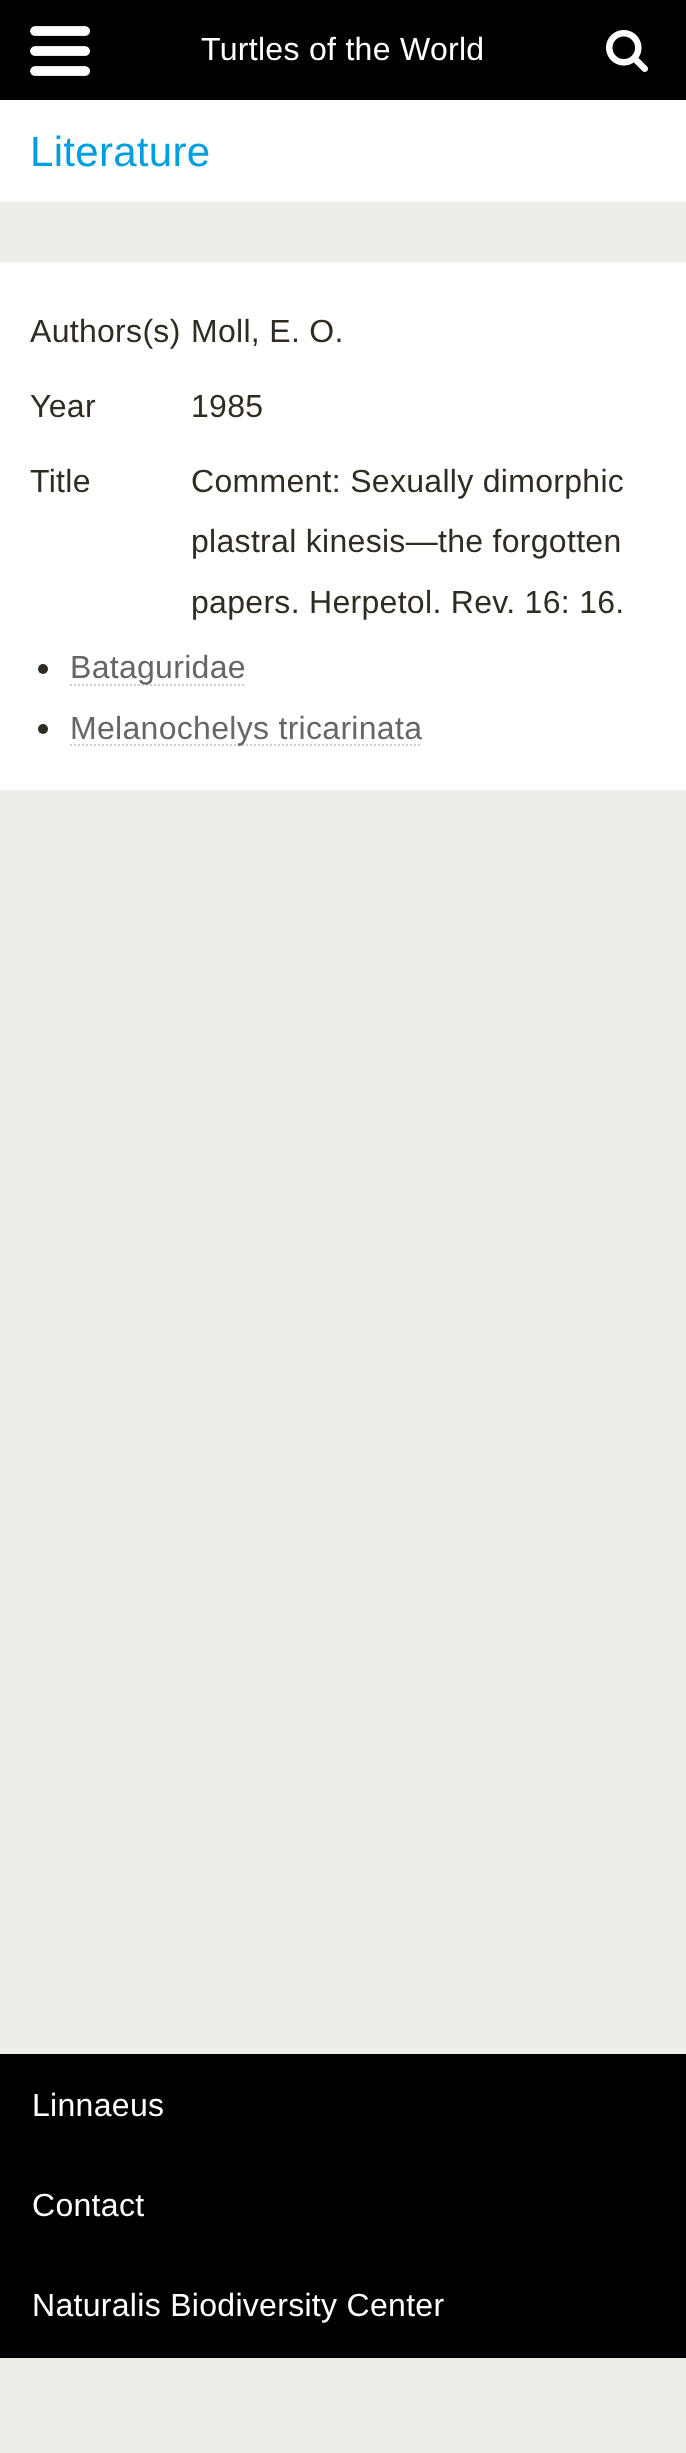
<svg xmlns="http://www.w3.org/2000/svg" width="686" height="2453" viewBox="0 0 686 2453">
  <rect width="100%" height="100%" fill="rgb(238,237,233)"/>
  <rect x="0" y="0" width="686" height="100" fill="rgb(0,0,0)"/>
  <image x="30" y="26" width="60" height="50" href="pic1.png"/>
  <text x="201" y="60" font-family="Liberation Sans" font-size="32" letter-spacing="0.3" fill="rgb(255,255,255)">Turtles of the World</text>
  <image x="606" y="30" width="42" height="42" href="pic2.png"/>
  <rect x="0" y="100" width="686" height="102" fill="rgb(255,255,255)"/>
  <text x="30" y="166" font-family="Liberation Sans" font-size="42" letter-spacing="0.3" fill="rgb(0,158,224)">Literature</text>
  <rect x="0" y="262" width="686" height="528" fill="rgb(255,255,255)"/>
  <g font-family="Liberation Sans" font-size="32" letter-spacing="0.3" fill="rgb(48,44,34)">
    <text x="30" y="342">Authors(s)</text>
    <text x="191" y="342">Moll, E. O.</text>
    <text x="30" y="417">Year</text>
    <text x="191" y="417">1985</text>
    <text x="30" y="492">Title</text>
    <text>
      <tspan x="191" y="492">Comment: Sexually dimorphic</tspan>
      <tspan x="191" y="552">plastral kinesis—the forgotten</tspan>
      <tspan x="191" y="613">papers. Herpetol. Rev. 16: 16.</tspan>
    </text>
  </g>
  <circle cx="43" cy="669" r="5" fill="rgb(48,44,34)"/>
  <path d="M70 685H246" fill="none" stroke="rgb(204,204,204)" stroke-width="2" stroke-dasharray="2 2"/>
  <text x="70" y="678" font-family="Liberation Sans" font-size="32" letter-spacing="0.3" fill="rgb(102,102,102)">Bataguridae</text>
  <circle cx="43" cy="729" r="5" fill="rgb(48,44,34)"/>
  <path d="M70 745H422" fill="none" stroke="rgb(204,204,204)" stroke-width="2" stroke-dasharray="2 2"/>
  <text x="70" y="739" font-family="Liberation Sans" font-size="32" letter-spacing="0.3" fill="rgb(102,102,102)">Melanochelys tricarinata</text>
  <rect x="0" y="2054" width="686" height="304" fill="rgb(0,0,0)"/>
  <g font-family="Liberation Sans" font-size="32" letter-spacing="0.3" fill="rgb(255,255,255)">
    <text x="32" y="2116">Linnaeus</text>
    <text x="32" y="2216">Contact</text>
    <text x="32" y="2316">Naturalis Biodiversity Center</text>
  </g>
</svg>
